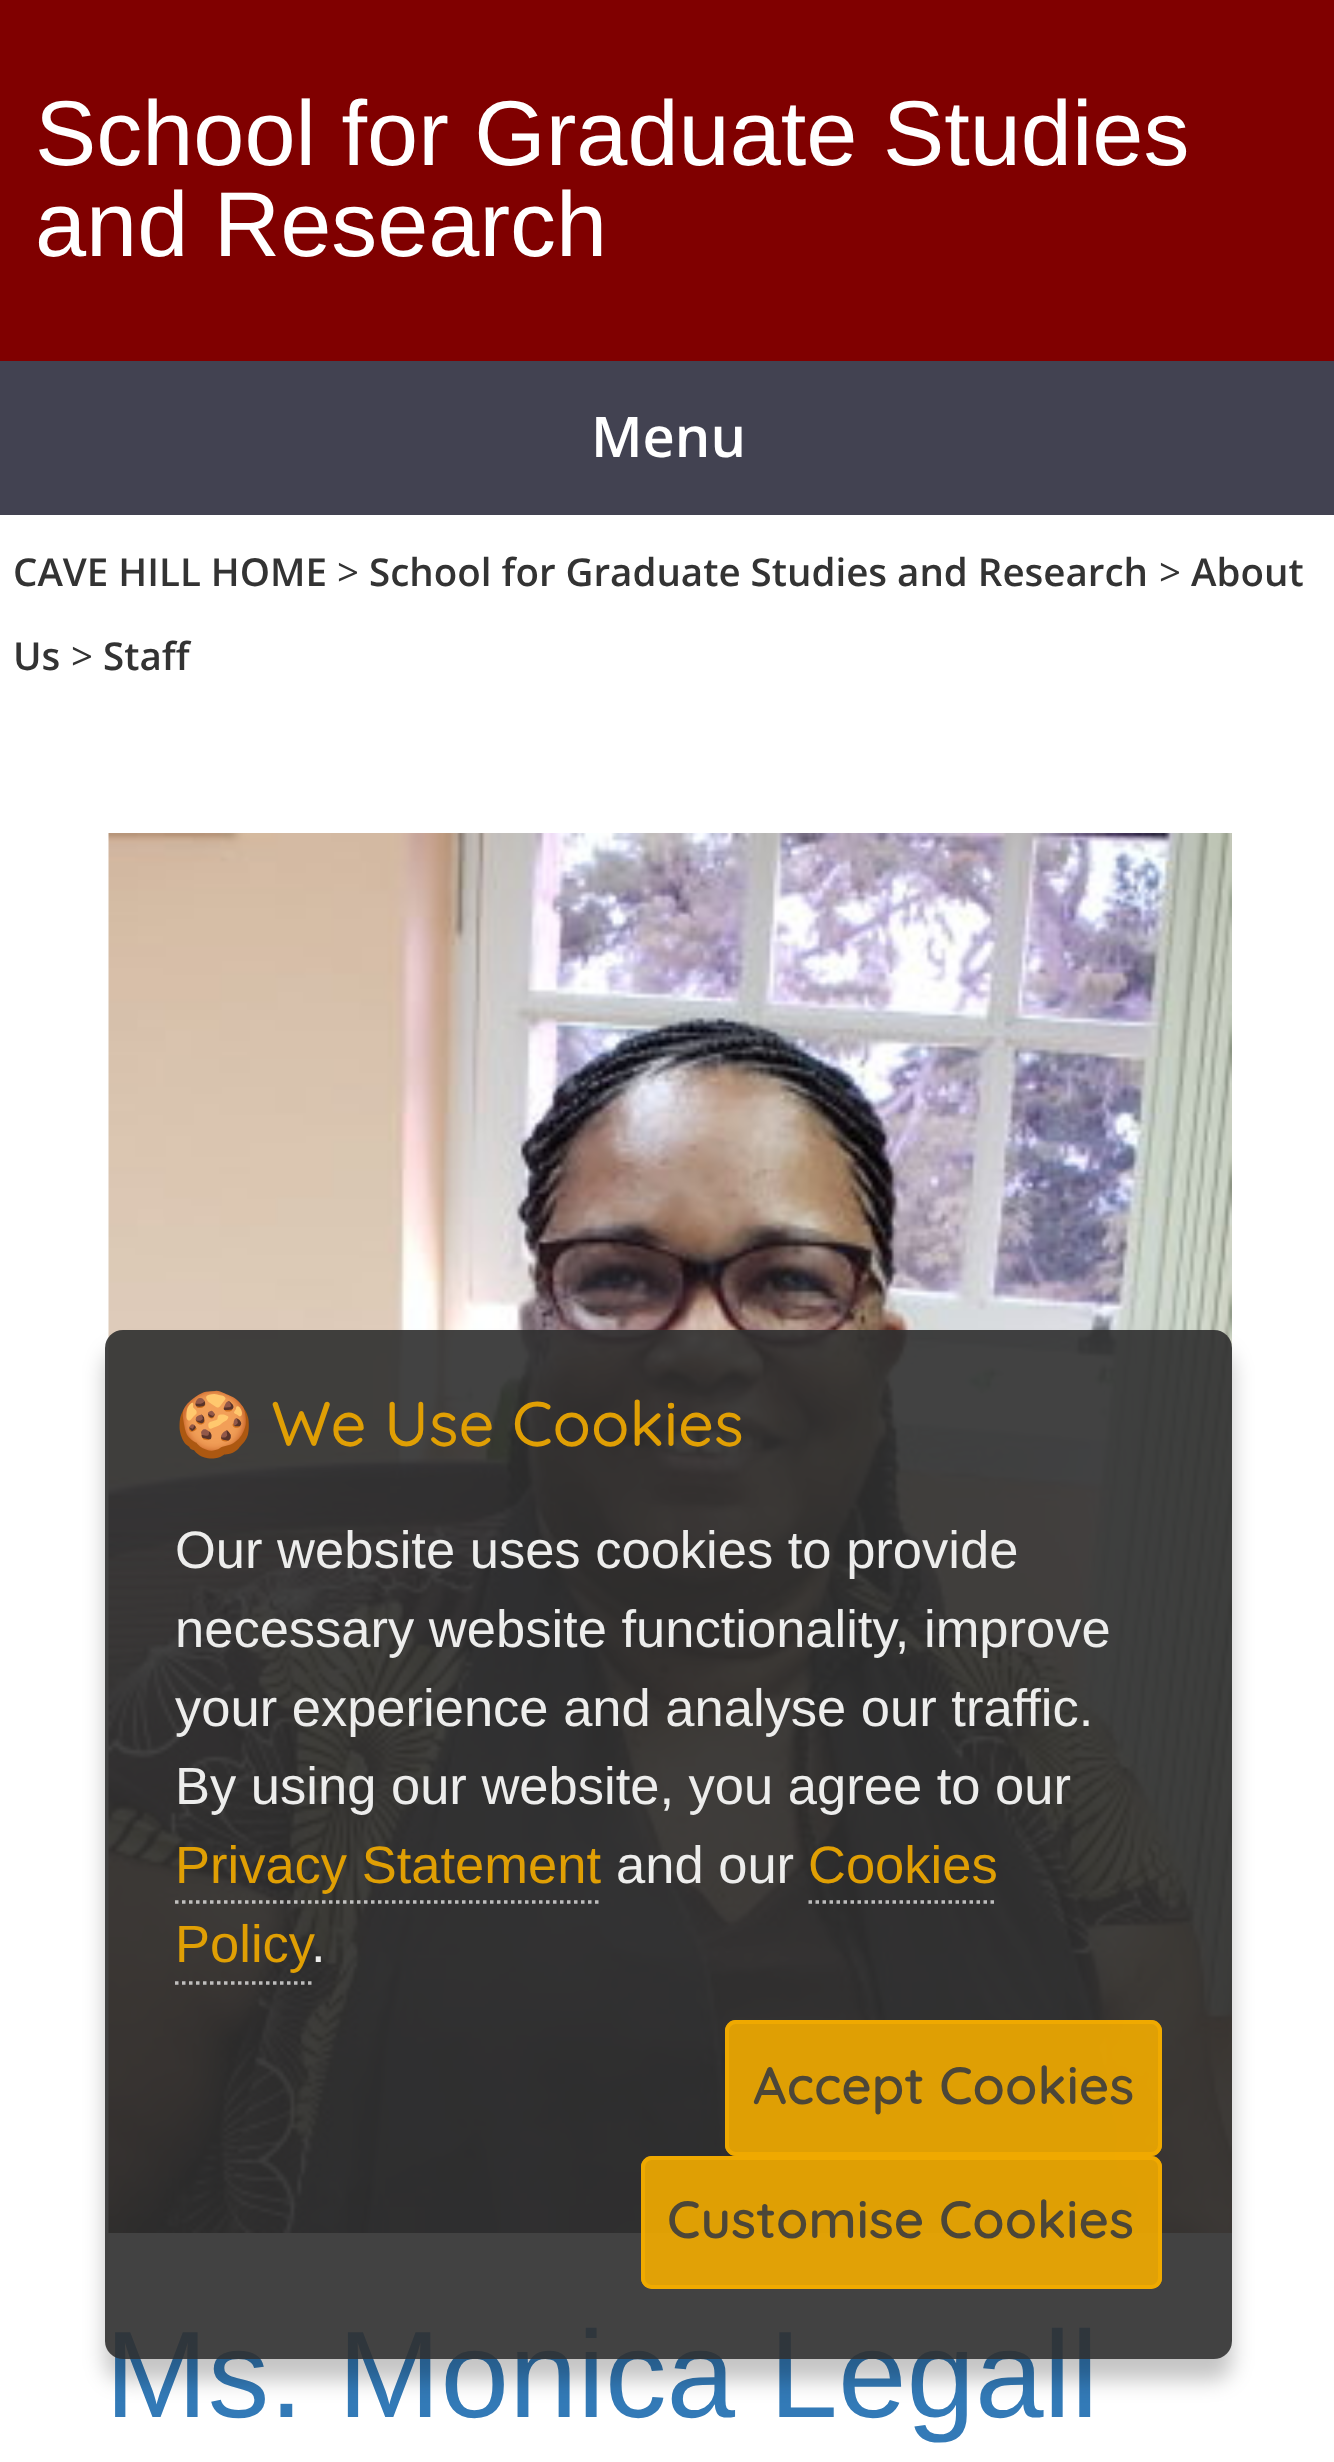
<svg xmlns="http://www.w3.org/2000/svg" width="1334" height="2462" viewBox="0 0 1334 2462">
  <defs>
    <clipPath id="clip1"><path d="M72 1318H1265V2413H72ZM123 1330H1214C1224 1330 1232 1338 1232 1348V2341C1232 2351 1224 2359 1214 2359H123C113 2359 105 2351 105 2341V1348C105 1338 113 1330 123 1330Z" clip-rule="evenodd"/></clipPath>
  </defs>
  <rect width="100%" height="100%" fill="rgb(255,255,255)"/>
  <rect x="0" y="0" width="1334" height="361" fill="rgb(128,0,0)"/>
  <g font-family="Liberation Sans" font-size="91.9" fill="rgb(255,255,255)">
    <text>
      <tspan x="35" y="165">School for Graduate Studies</tspan>
      <tspan x="35" y="256">and Research</tspan>
    </text>
  </g>
  <rect x="0" y="361" width="1334" height="154" fill="rgb(66,66,81)"/>
  <text x="591" y="457" font-family="Open Sans" font-size="56" font-weight="600" fill="rgb(255,255,255)">Menu</text>
  <text x="13" y="586" font-family="Open Sans" font-size="38.5" font-weight="600" fill="rgb(51,51,51)">CAVE HILL HOME</text>
  <text x="337" y="586" font-family="Open Sans" font-size="38.5" fill="rgb(51,51,51)">&gt;</text>
  <text x="369" y="586" font-family="Open Sans" font-size="38.5" font-weight="600" fill="rgb(51,51,51)">School for Graduate Studies and Research</text>
  <text x="1159" y="586" font-family="Open Sans" font-size="38.5" fill="rgb(51,51,51)">&gt;</text>
  <g font-family="Open Sans" font-size="38.5" font-weight="600" fill="rgb(51,51,51)">
    <text x="1191" y="586">About</text>
    <text x="13" y="670">Us</text>
  </g>
  <text x="71" y="670" font-family="Open Sans" font-size="38.5" fill="rgb(51,51,51)">&gt;</text>
  <text x="103" y="670" font-family="Open Sans" font-size="38.5" font-weight="600" fill="rgb(51,51,51)">Staff</text>
  <image x="108" y="833" width="1124" height="1400" href="pic1.png"/>
  <text x="105" y="2417" font-family="Liberation Sans" font-size="123.25" fill="rgb(51,122,183)">Ms. Monica Legall</text>
  <g clip-path="url(#clip1)">
    <rect x="105" y="1351" width="1127" height="1029" rx="18" fill="rgba(0,0,0,0.23)" filter="blur(10.5px)"/>
  </g>
  <rect x="105" y="1330" width="1127" height="1029" rx="18" fill="rgba(47,47,47,0.91)"/>
  <text x="175" y="1446" font-family="Noto Color Emoji" font-size="63" fill="rgb(224,159,4)">🍪</text>
  <text x="271" y="1446" font-family="Quicksand" font-size="63" font-weight="500" fill="rgb(224,159,4)">We Use Cookies</text>
  <g font-family="Liberation Sans" font-size="52.5" fill="rgb(237,237,236)">
    <text>
      <tspan x="175" y="1568">Our website uses cookies to provide</tspan>
      <tspan x="175" y="1647">necessary website functionality, improve</tspan>
      <tspan x="175" y="1726">your experience and analyse our traffic.</tspan>
      <tspan x="175" y="1804">By using our website, you agree to our</tspan>
    </text>
  </g>
  <text x="175" y="1883" font-family="Liberation Sans" font-size="52.5" fill="rgb(224,159,4)">Privacy Statement</text>
  <path d="M175 1902H602" fill="none" stroke="rgba(255,255,255,0.68)" stroke-width="3.5" stroke-dasharray="3.5 3.5"/>
  <text x="616" y="1883" font-family="Liberation Sans" font-size="52.5" fill="rgb(237,237,236)">and our</text>
  <text x="808" y="1883" font-family="Liberation Sans" font-size="52.5" fill="rgb(224,159,4)">Cookies</text>
  <path d="M808.5 1902H997.5" fill="none" stroke="rgba(255,255,255,0.68)" stroke-width="3.5" stroke-dasharray="3.5 3.5"/>
  <text x="175" y="1962" font-family="Liberation Sans" font-size="52.5" fill="rgb(224,159,4)">Policy</text>
  <path d="M175 1983H311.5" fill="none" stroke="rgba(255,255,255,0.68)" stroke-width="3.5" stroke-dasharray="3.5 3.5"/>
  <text x="311" y="1962" font-family="Liberation Sans" font-size="52.5" fill="rgb(237,237,236)">.</text>
  <rect x="725" y="2020" width="437" height="136" rx="11" fill="rgba(241,170,0,0.91)"/>
  <rect x="727" y="2022" width="433" height="132" rx="9" fill="none" stroke="rgba(241,170,0,0.91)" stroke-width="4"/>
  <text x="753" y="2104" font-family="Quicksand" font-size="52.5" font-weight="600" fill="rgb(76,70,56)">Accept Cookies</text>
  <rect x="641" y="2156" width="521" height="133" rx="11" fill="rgba(241,170,0,0.91)"/>
  <rect x="643" y="2158" width="517" height="129" rx="9" fill="none" stroke="rgba(241,170,0,0.91)" stroke-width="4"/>
  <text x="667" y="2238" font-family="Quicksand" font-size="52.5" font-weight="600" fill="rgb(76,70,56)">Customise Cookies</text>
</svg>
